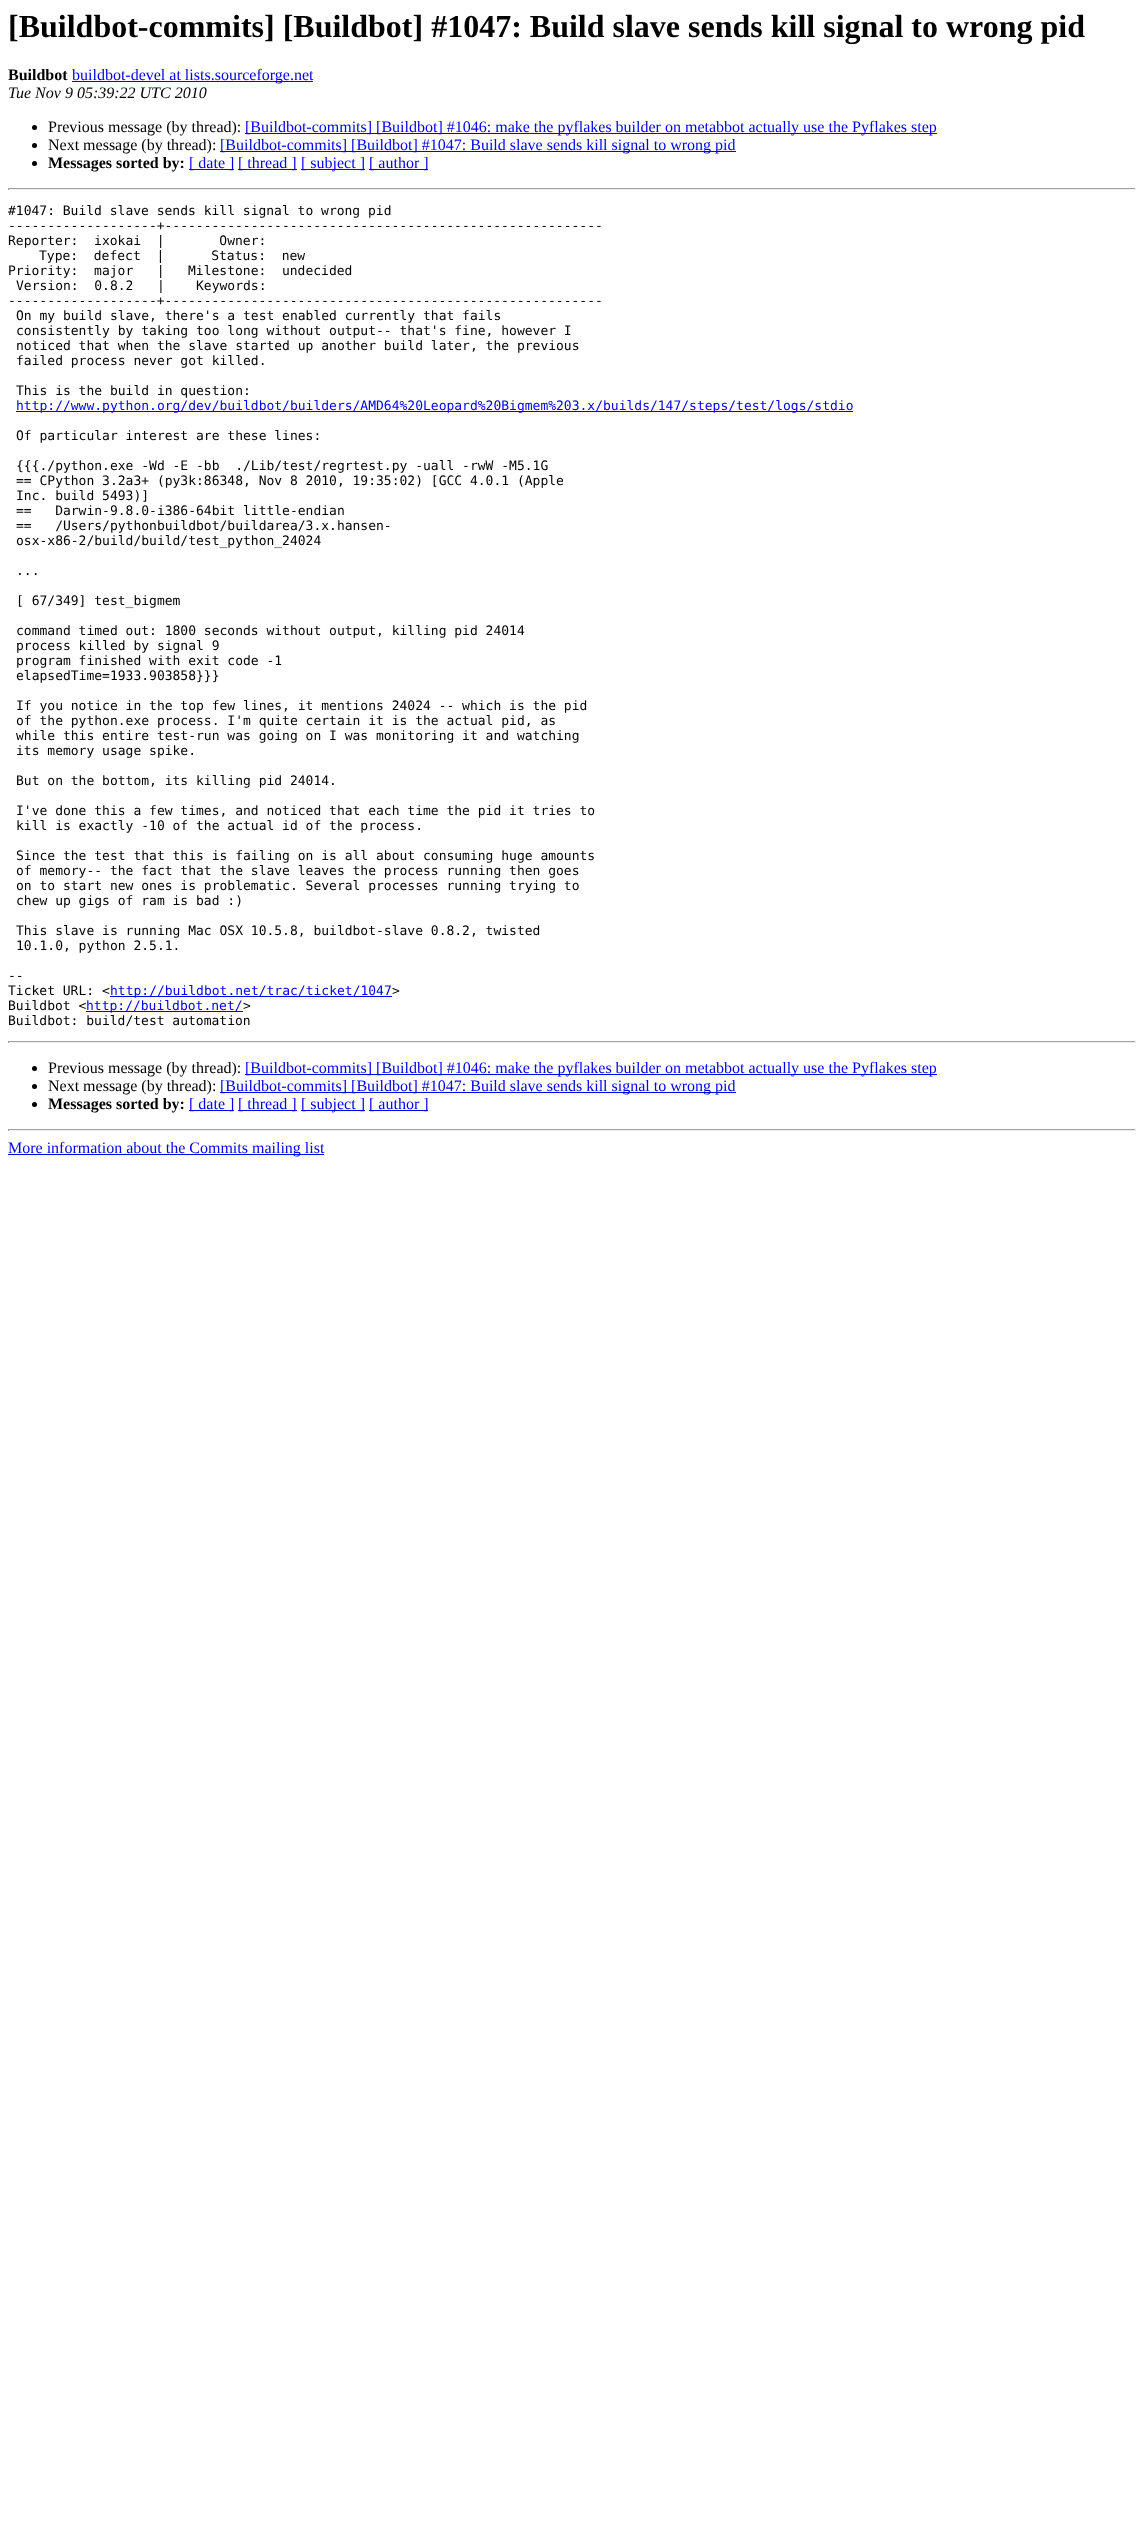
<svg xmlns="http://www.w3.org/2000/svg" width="1144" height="2521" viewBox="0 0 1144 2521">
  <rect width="100%" height="100%" fill="rgb(255,255,255)"/>
  <text x="8" y="37" font-family="Liberation Serif" font-size="32" font-weight="bold" fill="rgb(0,0,0)">[Buildbot-commits] [Buildbot] #1047: Build slave sends kill signal to wrong pid</text>
  <text x="8" y="80" font-family="Liberation Serif" font-size="16" font-weight="bold" fill="rgb(0,0,0)">Buildbot</text>
  <rect x="72" y="81" width="241" height="1" fill="rgb(0,0,238)"/>
  <text x="72" y="80" font-family="Liberation Serif" font-size="16" fill="rgb(0,0,238)">buildbot-devel at lists.sourceforge.net</text>
  <text x="8" y="98" font-family="Liberation Serif" font-size="16" font-style="italic" fill="rgb(0,0,0)">Tue Nov 9 05:39:22 UTC 2010</text>
  <circle cx="34.5" cy="127.5" r="2.5" fill="rgb(0,0,0)"/>
  <text x="48" y="132" font-family="Liberation Serif" font-size="16" fill="rgb(0,0,0)">Previous message (by thread):</text>
  <rect x="245" y="133" width="692" height="1" fill="rgb(0,0,238)"/>
  <text x="245" y="132" font-family="Liberation Serif" font-size="16" fill="rgb(0,0,238)">[Buildbot-commits] [Buildbot] #1046: make the pyflakes builder on metabbot actually use the Pyflakes step</text>
  <circle cx="34.5" cy="145.5" r="2.5" fill="rgb(0,0,0)"/>
  <text x="48" y="150" font-family="Liberation Serif" font-size="16" fill="rgb(0,0,0)">Next message (by thread):</text>
  <rect x="220" y="151" width="516" height="1" fill="rgb(0,0,238)"/>
  <text x="220" y="150" font-family="Liberation Serif" font-size="16" fill="rgb(0,0,238)">[Buildbot-commits] [Buildbot] #1047: Build slave sends kill signal to wrong pid</text>
  <circle cx="34.5" cy="163.5" r="2.5" fill="rgb(0,0,0)"/>
  <text x="48" y="168" font-family="Liberation Serif" font-size="16" font-weight="bold" fill="rgb(0,0,0)">Messages sorted by:</text>
  <rect x="189" y="169" width="45" height="1" fill="rgb(0,0,238)"/>
  <text x="189" y="168" font-family="Liberation Serif" font-size="16" fill="rgb(0,0,238)">[ date ]</text>
  <rect x="238" y="169" width="59" height="1" fill="rgb(0,0,238)"/>
  <text x="238" y="168" font-family="Liberation Serif" font-size="16" fill="rgb(0,0,238)">[ thread ]</text>
  <rect x="301" y="169" width="64" height="1" fill="rgb(0,0,238)"/>
  <text x="301" y="168" font-family="Liberation Serif" font-size="16" fill="rgb(0,0,238)">[ subject ]</text>
  <rect x="369" y="169" width="59" height="1" fill="rgb(0,0,238)"/>
  <text x="369" y="168" font-family="Liberation Serif" font-size="16" fill="rgb(0,0,238)">[ author ]</text>
  <rect x="8" y="188" width="1128" height="1" fill="rgb(159,159,159)"/>
  <rect x="1135" y="188" width="1" height="2" fill="rgb(238,238,238)"/>
  <rect x="8" y="189" width="1128" height="1" fill="rgb(238,238,238)"/>
  <rect x="8" y="188" width="1" height="2" fill="rgb(159,159,159)"/>
  <g font-family="DejaVu Sans Mono" font-size="13" fill="rgb(0,0,0)">
    <text xml:space="preserve"><tspan x="8" y="215">#1047: Build slave sends kill signal to wrong pid</tspan><tspan x="8" y="230">-------------------+--------------------------------------------------------</tspan><tspan x="8" y="245">Reporter:  ixokai  |       Owner:</tspan></text>
    <text x="39" y="260" xml:space="preserve">Type:  defect  |      Status:  new</text>
    <text x="8" y="275" xml:space="preserve">Priority:  major   |   Milestone:  undecided</text>
    <text x="16" y="290" xml:space="preserve">Version:  0.8.2   |    Keywords:</text>
    <text x="8" y="305">-------------------+--------------------------------------------------------</text>
    <text>
      <tspan x="16" y="320">On my build slave, there's a test enabled currently that fails</tspan>
      <tspan x="16" y="335">consistently by taking too long without output-- that's fine, however I</tspan>
      <tspan x="16" y="350">noticed that when the slave started up another build later, the previous</tspan>
      <tspan x="16" y="365">failed process never got killed.</tspan>
    </text>
    <text x="16" y="395">This is the build in question:</text>
  </g>
  <rect x="16" y="411" width="837" height="1" fill="rgb(0,0,238)"/>
  <text x="16" y="410" font-family="DejaVu Sans Mono" font-size="13" fill="rgb(0,0,238)">http://www.python.org/dev/buildbot/builders/AMD64%20Leopard%20Bigmem%203.x/builds/147/steps/test/logs/stdio</text>
  <g font-family="DejaVu Sans Mono" font-size="13" fill="rgb(0,0,0)">
    <text x="16" y="440">Of particular interest are these lines:</text>
    <text xml:space="preserve"><tspan x="16" y="470">{{{./python.exe -Wd -E -bb  ./Lib/test/regrtest.py -uall -rwW -M5.1G</tspan><tspan x="16" y="485">== CPython 3.2a3+ (py3k:86348, Nov 8 2010, 19:35:02) [GCC 4.0.1 (Apple</tspan><tspan x="16" y="500">Inc. build 5493)]</tspan><tspan x="16" y="515">==   Darwin-9.8.0-i386-64bit little-endian</tspan><tspan x="16" y="530">==   /Users/pythonbuildbot/buildarea/3.x.hansen-</tspan><tspan x="16" y="545">osx-x86-2/build/build/test_python_24024</tspan></text>
    <text x="16" y="575">...</text>
    <text x="16" y="605">[ 67/349] test_bigmem</text>
    <text>
      <tspan x="16" y="635">command timed out: 1800 seconds without output, killing pid 24014</tspan>
      <tspan x="16" y="650">process killed by signal 9</tspan>
      <tspan x="16" y="665">program finished with exit code -1</tspan>
      <tspan x="16" y="680">elapsedTime=1933.903858}}}</tspan>
    </text>
    <text>
      <tspan x="16" y="710">If you notice in the top few lines, it mentions 24024 -- which is the pid</tspan>
      <tspan x="16" y="725">of the python.exe process. I'm quite certain it is the actual pid, as</tspan>
      <tspan x="16" y="740">while this entire test-run was going on I was monitoring it and watching</tspan>
      <tspan x="16" y="755">its memory usage spike.</tspan>
    </text>
    <text x="16" y="785">But on the bottom, its killing pid 24014.</text>
    <text>
      <tspan x="16" y="815">I've done this a few times, and noticed that each time the pid it tries to</tspan>
      <tspan x="16" y="830">kill is exactly -10 of the actual id of the process.</tspan>
    </text>
    <text>
      <tspan x="16" y="860">Since the test that this is failing on is all about consuming huge amounts</tspan>
      <tspan x="16" y="875">of memory-- the fact that the slave leaves the process running then goes</tspan>
      <tspan x="16" y="890">on to start new ones is problematic. Several processes running trying to</tspan>
      <tspan x="16" y="905">chew up gigs of ram is bad :)</tspan>
    </text>
    <text>
      <tspan x="16" y="935">This slave is running Mac OSX 10.5.8, buildbot-slave 0.8.2, twisted</tspan>
      <tspan x="16" y="950">10.1.0, python 2.5.1.</tspan>
    </text>
    <text>
      <tspan x="8" y="980">--</tspan>
      <tspan x="8" y="995">Ticket URL: &lt;</tspan>
    </text>
  </g>
  <rect x="110" y="996" width="282" height="1" fill="rgb(0,0,238)"/>
  <text x="110" y="995" font-family="DejaVu Sans Mono" font-size="13" fill="rgb(0,0,238)">http://buildbot.net/trac/ticket/1047</text>
  <g font-family="DejaVu Sans Mono" font-size="13" fill="rgb(0,0,0)">
    <text x="392" y="995">&gt;</text>
    <text x="8" y="1010">Buildbot &lt;</text>
  </g>
  <rect x="86" y="1011" width="157" height="1" fill="rgb(0,0,238)"/>
  <text x="86" y="1010" font-family="DejaVu Sans Mono" font-size="13" fill="rgb(0,0,238)">http://buildbot.net/</text>
  <g font-family="DejaVu Sans Mono" font-size="13" fill="rgb(0,0,0)">
    <text x="243" y="1010">&gt;</text>
    <text x="8" y="1025">Buildbot: build/test automation</text>
  </g>
  <rect x="8" y="1041" width="1128" height="1" fill="rgb(159,159,159)"/>
  <rect x="1135" y="1041" width="1" height="2" fill="rgb(238,238,238)"/>
  <rect x="8" y="1042" width="1128" height="1" fill="rgb(238,238,238)"/>
  <rect x="8" y="1041" width="1" height="2" fill="rgb(159,159,159)"/>
  <circle cx="34.5" cy="1068.5" r="2.5" fill="rgb(0,0,0)"/>
  <text x="48" y="1073" font-family="Liberation Serif" font-size="16" fill="rgb(0,0,0)">Previous message (by thread):</text>
  <rect x="245" y="1074" width="692" height="1" fill="rgb(0,0,238)"/>
  <text x="245" y="1073" font-family="Liberation Serif" font-size="16" fill="rgb(0,0,238)">[Buildbot-commits] [Buildbot] #1046: make the pyflakes builder on metabbot actually use the Pyflakes step</text>
  <circle cx="34.5" cy="1086.5" r="2.5" fill="rgb(0,0,0)"/>
  <text x="48" y="1091" font-family="Liberation Serif" font-size="16" fill="rgb(0,0,0)">Next message (by thread):</text>
  <rect x="220" y="1092" width="516" height="1" fill="rgb(0,0,238)"/>
  <text x="220" y="1091" font-family="Liberation Serif" font-size="16" fill="rgb(0,0,238)">[Buildbot-commits] [Buildbot] #1047: Build slave sends kill signal to wrong pid</text>
  <circle cx="34.5" cy="1104.5" r="2.5" fill="rgb(0,0,0)"/>
  <text x="48" y="1109" font-family="Liberation Serif" font-size="16" font-weight="bold" fill="rgb(0,0,0)">Messages sorted by:</text>
  <rect x="189" y="1110" width="45" height="1" fill="rgb(0,0,238)"/>
  <text x="189" y="1109" font-family="Liberation Serif" font-size="16" fill="rgb(0,0,238)">[ date ]</text>
  <rect x="238" y="1110" width="59" height="1" fill="rgb(0,0,238)"/>
  <text x="238" y="1109" font-family="Liberation Serif" font-size="16" fill="rgb(0,0,238)">[ thread ]</text>
  <rect x="301" y="1110" width="64" height="1" fill="rgb(0,0,238)"/>
  <text x="301" y="1109" font-family="Liberation Serif" font-size="16" fill="rgb(0,0,238)">[ subject ]</text>
  <rect x="369" y="1110" width="59" height="1" fill="rgb(0,0,238)"/>
  <text x="369" y="1109" font-family="Liberation Serif" font-size="16" fill="rgb(0,0,238)">[ author ]</text>
  <rect x="8" y="1129" width="1128" height="1" fill="rgb(159,159,159)"/>
  <rect x="1135" y="1129" width="1" height="2" fill="rgb(238,238,238)"/>
  <rect x="8" y="1130" width="1128" height="1" fill="rgb(238,238,238)"/>
  <rect x="8" y="1129" width="1" height="2" fill="rgb(159,159,159)"/>
  <rect x="8" y="1154" width="316" height="1" fill="rgb(0,0,238)"/>
  <text x="8" y="1153" font-family="Liberation Serif" font-size="16" fill="rgb(0,0,238)">More information about the Commits mailing list</text>
</svg>
